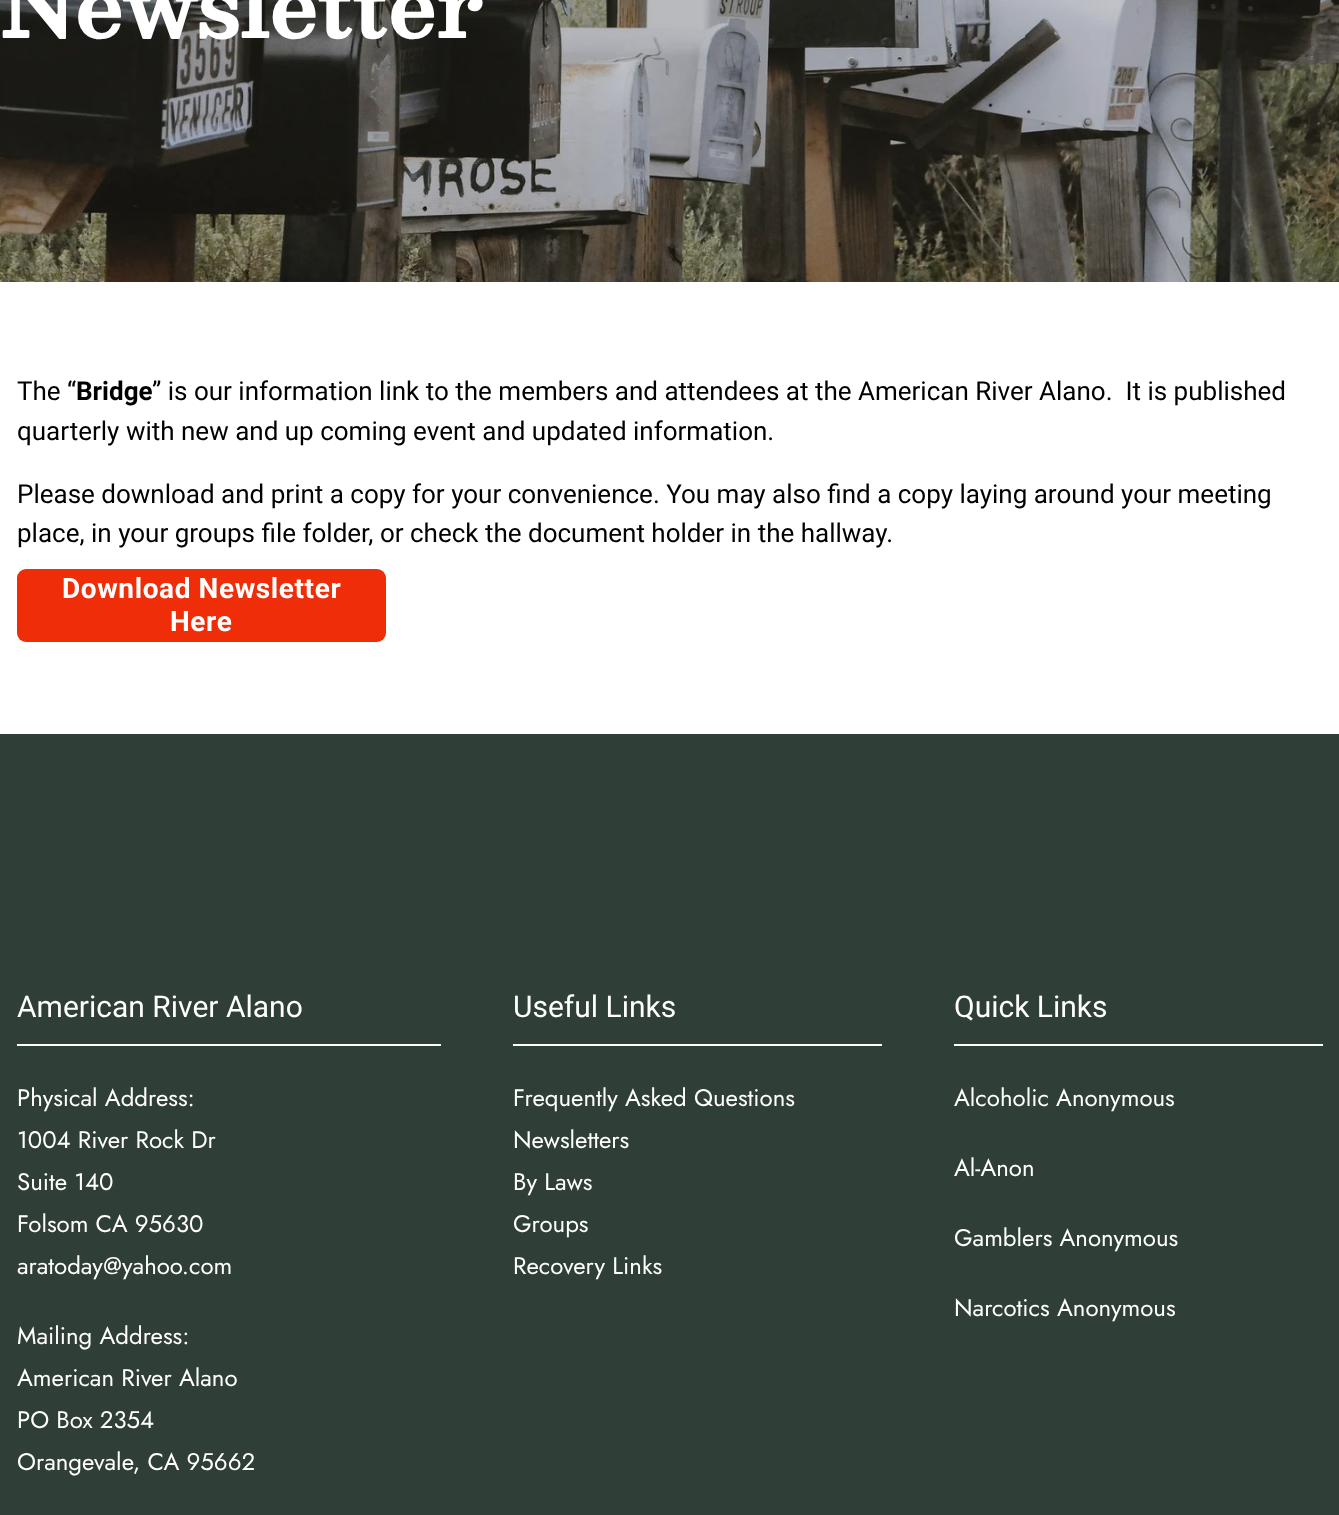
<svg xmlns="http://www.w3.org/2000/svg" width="1339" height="1515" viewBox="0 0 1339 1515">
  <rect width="100%" height="100%" fill="rgb(255,255,255)"/>
  <image x="0" y="0" width="1339" height="282" href="pic1.png"/>
  <text x="0" y="38" font-family="Besley" font-size="83.25" font-weight="bold" fill="rgb(255,255,255)">Newsletter</text>
  <text x="17" y="400" font-family="Roboto" font-size="26" fill="rgb(0,0,0)">The “</text>
  <text x="76" y="400" font-family="Roboto" font-size="26" font-weight="bold" fill="rgb(0,0,0)">Bridge</text>
  <g font-family="Roboto" font-size="26" fill="rgb(0,0,0)">
    <text x="152" y="400" xml:space="preserve">” is our information link to the members and attendees at the American River Alano.  It is published</text>
    <text x="17" y="440">quarterly with new and up coming event and updated information.</text>
    <text>
      <tspan x="17" y="503">Please download and print a copy for your convenience. You may also find a copy laying around your meeting</tspan>
      <tspan x="17" y="542">place, in your groups file folder, or check the document holder in the hallway.</tspan>
    </text>
  </g>
  <rect x="17" y="569" width="369" height="73" rx="9" fill="rgb(239,45,8)"/>
  <g font-family="Roboto" font-size="28" font-weight="bold" letter-spacing="0.6" fill="rgb(255,255,255)">
    <text x="62" y="598">Download Newsletter</text>
    <text x="170" y="631">Here</text>
  </g>
  <rect x="0" y="734" width="1339" height="781" fill="rgb(47,62,54)"/>
  <g font-family="Roboto" font-size="30" fill="rgb(255,255,255)">
    <text x="17" y="1017">American River Alano</text>
    <text x="513" y="1017">Useful Links</text>
    <text x="954" y="1017">Quick Links</text>
  </g>
  <rect x="17" y="1044" width="424" height="2" fill="rgb(255,255,255)"/>
  <rect x="513" y="1044" width="369" height="2" fill="rgb(255,255,255)"/>
  <rect x="954" y="1044" width="369" height="2" fill="rgb(255,255,255)"/>
  <g font-family="Jost" font-size="24" fill="rgb(255,255,255)">
    <text>
      <tspan x="17" y="1106">Physical Address:</tspan>
      <tspan x="17" y="1148">1004 River Rock Dr</tspan>
      <tspan x="17" y="1190">Suite 140</tspan>
      <tspan x="17" y="1232">Folsom CA 95630</tspan>
      <tspan x="17" y="1274">aratoday@yahoo.com</tspan>
    </text>
    <text>
      <tspan x="17" y="1344">Mailing Address:</tspan>
      <tspan x="17" y="1386">American River Alano</tspan>
      <tspan x="17" y="1428">PO Box 2354</tspan>
      <tspan x="17" y="1470">Orangevale, CA 95662</tspan>
    </text>
    <text>
      <tspan x="513" y="1106">Frequently Asked Questions</tspan>
      <tspan x="513" y="1148">Newsletters</tspan>
      <tspan x="513" y="1190">By Laws</tspan>
      <tspan x="513" y="1232">Groups</tspan>
      <tspan x="513" y="1274">Recovery Links</tspan>
    </text>
    <text x="954" y="1106">Alcoholic Anonymous</text>
    <text x="954" y="1176">Al-Anon</text>
    <text x="954" y="1246">Gamblers Anonymous</text>
    <text x="954" y="1316">Narcotics Anonymous</text>
  </g>
</svg>
